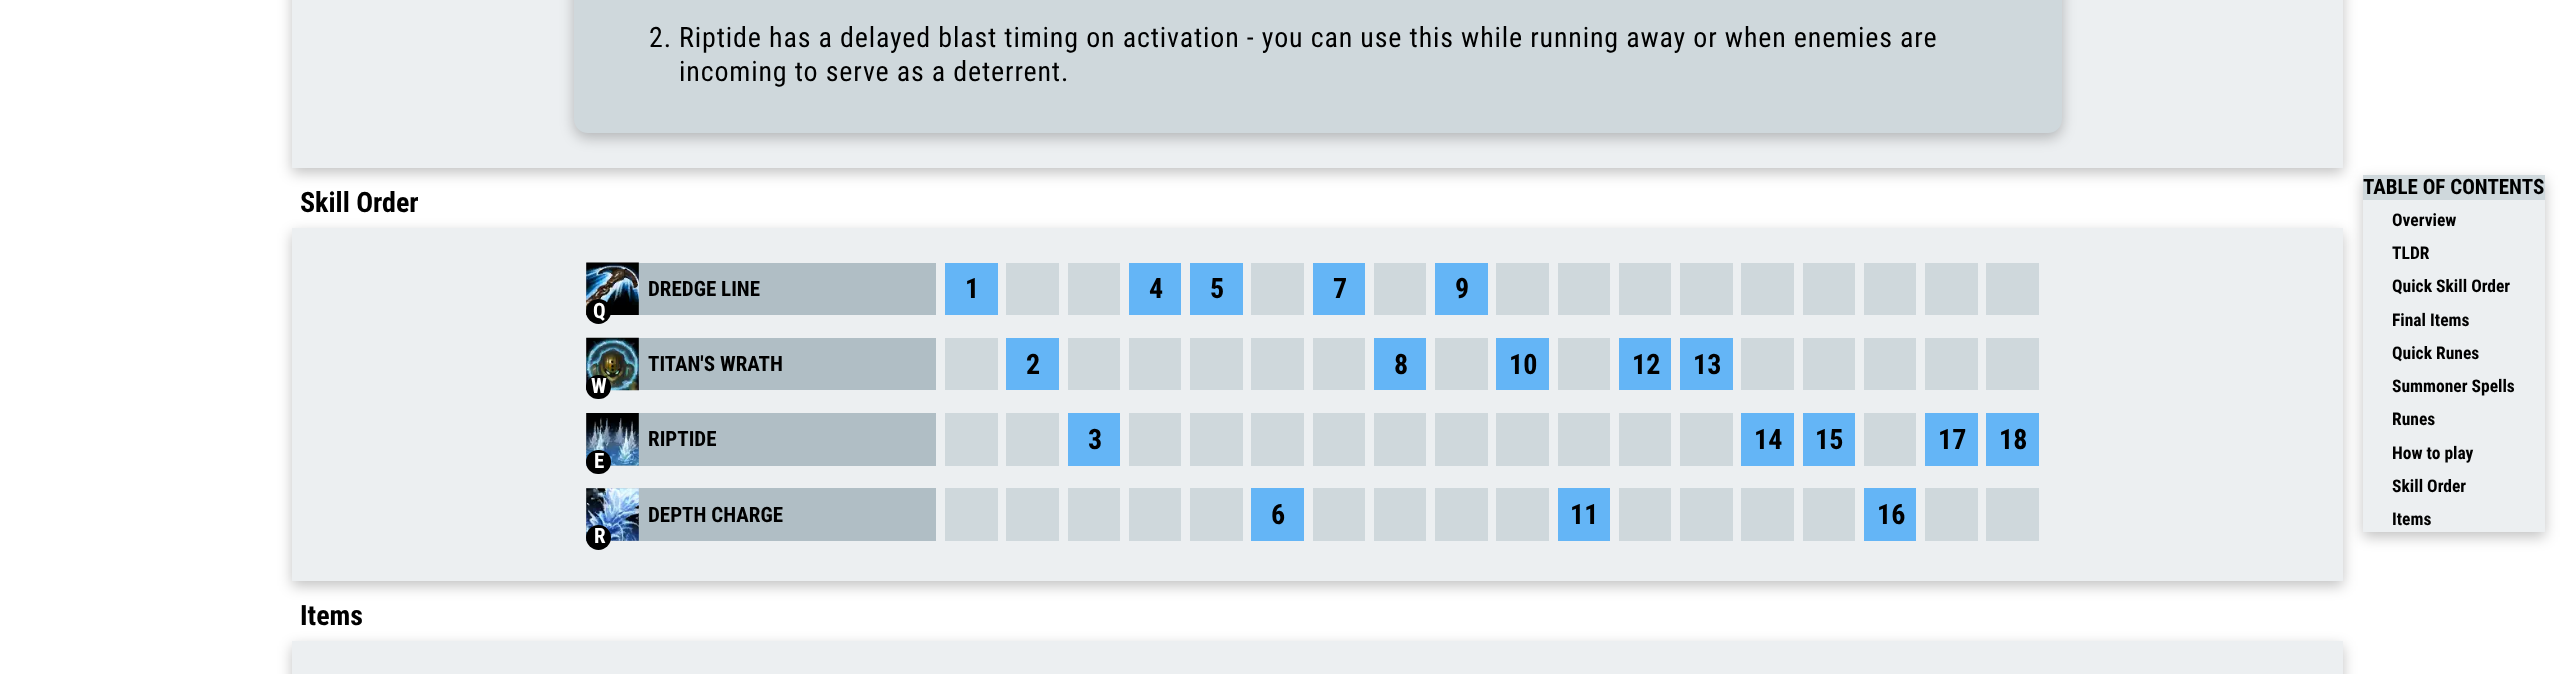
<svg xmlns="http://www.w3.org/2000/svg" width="2564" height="674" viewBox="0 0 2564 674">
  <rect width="100%" height="100%" fill="rgb(255,255,255)"/>
  <rect x="292" y="-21" width="2051" height="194" fill="rgba(0,0,0,0.24)" filter="blur(7px)"/>
  <rect x="292" y="0" width="2051" height="168" fill="rgb(236,239,241)"/>
  <rect x="574" y="-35" width="1488" height="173" rx="14" fill="rgba(0,0,0,0.24)" filter="blur(7px)"/>
  <rect x="574" y="-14" width="1488" height="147" rx="14" fill="rgb(207,216,220)"/>
  <g font-family="Roboto Condensed" font-size="28" letter-spacing="0.84" fill="rgb(0,0,0)">
    <text x="649" y="47">2. Riptide has a delayed blast timing on activation - you can use this while running away or when enemies are</text>
    <text x="679" y="81">incoming to serve as a deterrent.</text>
  </g>
  <rect x="292" y="233" width="2051" height="353" fill="rgba(0,0,0,0.24)" filter="blur(7px)"/>
  <text x="300" y="212" font-family="Roboto Condensed" font-size="28" font-weight="bold" fill="rgb(0,0,0)">Skill Order</text>
  <rect x="292" y="228" width="2051" height="353" fill="rgb(236,239,241)"/>
  <rect x="586" y="263" width="350" height="52" fill="rgb(176,190,197)"/>
  <text x="648" y="296" font-family="Roboto Condensed" font-size="21" font-weight="bold" fill="rgb(0,0,0)">DREDGE LINE</text>
  <image x="586" y="262" width="53" height="53" href="pic1.png"/>
  <circle cx="598.5" cy="311.5" r="12.5" fill="rgb(0,0,0)"/>
  <text x="593" y="318" font-family="Roboto Condensed" font-size="21" font-weight="bold" fill="rgb(255,255,255)">Q</text>
  <rect x="945" y="263" width="53" height="52" fill="rgb(100,181,246)"/>
  <text x="965" y="298" font-family="Roboto Condensed" font-size="28" font-weight="bold" fill="rgb(0,0,0)">1</text>
  <rect x="1006" y="263" width="53" height="52" fill="rgb(207,216,220)"/>
  <rect x="1068" y="263" width="52" height="52" fill="rgb(207,216,220)"/>
  <rect x="1129" y="263" width="52" height="52" fill="rgb(100,181,246)"/>
  <text x="1149" y="298" font-family="Roboto Condensed" font-size="28" font-weight="bold" fill="rgb(0,0,0)">4</text>
  <rect x="1190" y="263" width="53" height="52" fill="rgb(100,181,246)"/>
  <text x="1210" y="298" font-family="Roboto Condensed" font-size="28" font-weight="bold" fill="rgb(0,0,0)">5</text>
  <rect x="1251" y="263" width="53" height="52" fill="rgb(207,216,220)"/>
  <rect x="1313" y="263" width="52" height="52" fill="rgb(100,181,246)"/>
  <text x="1333" y="298" font-family="Roboto Condensed" font-size="28" font-weight="bold" fill="rgb(0,0,0)">7</text>
  <rect x="1374" y="263" width="52" height="52" fill="rgb(207,216,220)"/>
  <rect x="1435" y="263" width="53" height="52" fill="rgb(100,181,246)"/>
  <text x="1455" y="298" font-family="Roboto Condensed" font-size="28" font-weight="bold" fill="rgb(0,0,0)">9</text>
  <rect x="1496" y="263" width="53" height="52" fill="rgb(207,216,220)"/>
  <rect x="1558" y="263" width="52" height="52" fill="rgb(207,216,220)"/>
  <rect x="1619" y="263" width="52" height="52" fill="rgb(207,216,220)"/>
  <rect x="1680" y="263" width="53" height="52" fill="rgb(207,216,220)"/>
  <rect x="1741" y="263" width="53" height="52" fill="rgb(207,216,220)"/>
  <rect x="1803" y="263" width="52" height="52" fill="rgb(207,216,220)"/>
  <rect x="1864" y="263" width="52" height="52" fill="rgb(207,216,220)"/>
  <rect x="1925" y="263" width="53" height="52" fill="rgb(207,216,220)"/>
  <rect x="1986" y="263" width="53" height="52" fill="rgb(207,216,220)"/>
  <rect x="586" y="338" width="350" height="52" fill="rgb(176,190,197)"/>
  <text x="648" y="371" font-family="Roboto Condensed" font-size="21" font-weight="bold" fill="rgb(0,0,0)">TITAN'S WRATH</text>
  <image x="586" y="337" width="53" height="54" href="pic2.png"/>
  <rect x="586" y="375" width="25" height="24" rx="12" fill="rgb(0,0,0)"/>
  <text x="591" y="393" font-family="Roboto Condensed" font-size="21" font-weight="bold" fill="rgb(255,255,255)">W</text>
  <rect x="945" y="338" width="53" height="52" fill="rgb(207,216,220)"/>
  <rect x="1006" y="338" width="53" height="52" fill="rgb(100,181,246)"/>
  <text x="1026" y="374" font-family="Roboto Condensed" font-size="28" font-weight="bold" fill="rgb(0,0,0)">2</text>
  <rect x="1068" y="338" width="52" height="52" fill="rgb(207,216,220)"/>
  <rect x="1129" y="338" width="52" height="52" fill="rgb(207,216,220)"/>
  <rect x="1190" y="338" width="53" height="52" fill="rgb(207,216,220)"/>
  <rect x="1251" y="338" width="53" height="52" fill="rgb(207,216,220)"/>
  <rect x="1313" y="338" width="52" height="52" fill="rgb(207,216,220)"/>
  <rect x="1374" y="338" width="52" height="52" fill="rgb(100,181,246)"/>
  <text x="1394" y="374" font-family="Roboto Condensed" font-size="28" font-weight="bold" fill="rgb(0,0,0)">8</text>
  <rect x="1435" y="338" width="53" height="52" fill="rgb(207,216,220)"/>
  <rect x="1496" y="338" width="53" height="52" fill="rgb(100,181,246)"/>
  <text x="1509" y="374" font-family="Roboto Condensed" font-size="28" font-weight="bold" fill="rgb(0,0,0)">10</text>
  <rect x="1558" y="338" width="52" height="52" fill="rgb(207,216,220)"/>
  <rect x="1619" y="338" width="52" height="52" fill="rgb(100,181,246)"/>
  <text x="1632" y="374" font-family="Roboto Condensed" font-size="28" font-weight="bold" fill="rgb(0,0,0)">12</text>
  <rect x="1680" y="338" width="53" height="52" fill="rgb(100,181,246)"/>
  <text x="1693" y="374" font-family="Roboto Condensed" font-size="28" font-weight="bold" fill="rgb(0,0,0)">13</text>
  <rect x="1741" y="338" width="53" height="52" fill="rgb(207,216,220)"/>
  <rect x="1803" y="338" width="52" height="52" fill="rgb(207,216,220)"/>
  <rect x="1864" y="338" width="52" height="52" fill="rgb(207,216,220)"/>
  <rect x="1925" y="338" width="53" height="52" fill="rgb(207,216,220)"/>
  <rect x="1986" y="338" width="53" height="52" fill="rgb(207,216,220)"/>
  <rect x="586" y="413" width="350" height="53" fill="rgb(176,190,197)"/>
  <text x="648" y="446" font-family="Roboto Condensed" font-size="21" font-weight="bold" fill="rgb(0,0,0)">RIPTIDE</text>
  <image x="586" y="413" width="53" height="53" href="pic3.png"/>
  <rect x="586" y="450" width="25" height="24" rx="12" fill="rgb(0,0,0)"/>
  <text x="594" y="468" font-family="Roboto Condensed" font-size="21" font-weight="bold" fill="rgb(255,255,255)">E</text>
  <rect x="945" y="413" width="53" height="53" fill="rgb(207,216,220)"/>
  <rect x="1006" y="413" width="53" height="53" fill="rgb(207,216,220)"/>
  <rect x="1068" y="413" width="52" height="53" fill="rgb(100,181,246)"/>
  <text x="1088" y="449" font-family="Roboto Condensed" font-size="28" font-weight="bold" fill="rgb(0,0,0)">3</text>
  <rect x="1129" y="413" width="52" height="53" fill="rgb(207,216,220)"/>
  <rect x="1190" y="413" width="53" height="53" fill="rgb(207,216,220)"/>
  <rect x="1251" y="413" width="53" height="53" fill="rgb(207,216,220)"/>
  <rect x="1313" y="413" width="52" height="53" fill="rgb(207,216,220)"/>
  <rect x="1374" y="413" width="52" height="53" fill="rgb(207,216,220)"/>
  <rect x="1435" y="413" width="53" height="53" fill="rgb(207,216,220)"/>
  <rect x="1496" y="413" width="53" height="53" fill="rgb(207,216,220)"/>
  <rect x="1558" y="413" width="52" height="53" fill="rgb(207,216,220)"/>
  <rect x="1619" y="413" width="52" height="53" fill="rgb(207,216,220)"/>
  <rect x="1680" y="413" width="53" height="53" fill="rgb(207,216,220)"/>
  <rect x="1741" y="413" width="53" height="53" fill="rgb(100,181,246)"/>
  <text x="1754" y="449" font-family="Roboto Condensed" font-size="28" font-weight="bold" fill="rgb(0,0,0)">14</text>
  <rect x="1803" y="413" width="52" height="53" fill="rgb(100,181,246)"/>
  <text x="1815" y="449" font-family="Roboto Condensed" font-size="28" font-weight="bold" fill="rgb(0,0,0)">15</text>
  <rect x="1864" y="413" width="52" height="53" fill="rgb(207,216,220)"/>
  <rect x="1925" y="413" width="53" height="53" fill="rgb(100,181,246)"/>
  <text x="1938" y="449" font-family="Roboto Condensed" font-size="28" font-weight="bold" fill="rgb(0,0,0)">17</text>
  <rect x="1986" y="413" width="53" height="53" fill="rgb(100,181,246)"/>
  <text x="1999" y="449" font-family="Roboto Condensed" font-size="28" font-weight="bold" fill="rgb(0,0,0)">18</text>
  <rect x="586" y="488" width="350" height="53" fill="rgb(176,190,197)"/>
  <text x="648" y="522" font-family="Roboto Condensed" font-size="21" font-weight="bold" fill="rgb(0,0,0)">DEPTH CHARGE</text>
  <image x="586" y="488" width="53" height="53" href="pic4.png"/>
  <circle cx="598.5" cy="537.5" r="12.5" fill="rgb(0,0,0)"/>
  <text x="594" y="543" font-family="Roboto Condensed" font-size="21" font-weight="bold" fill="rgb(255,255,255)">R</text>
  <rect x="945" y="488" width="53" height="53" fill="rgb(207,216,220)"/>
  <rect x="1006" y="488" width="53" height="53" fill="rgb(207,216,220)"/>
  <rect x="1068" y="488" width="52" height="53" fill="rgb(207,216,220)"/>
  <rect x="1129" y="488" width="52" height="53" fill="rgb(207,216,220)"/>
  <rect x="1190" y="488" width="53" height="53" fill="rgb(207,216,220)"/>
  <rect x="1251" y="488" width="53" height="53" fill="rgb(100,181,246)"/>
  <text x="1271" y="524" font-family="Roboto Condensed" font-size="28" font-weight="bold" fill="rgb(0,0,0)">6</text>
  <rect x="1313" y="488" width="52" height="53" fill="rgb(207,216,220)"/>
  <rect x="1374" y="488" width="52" height="53" fill="rgb(207,216,220)"/>
  <rect x="1435" y="488" width="53" height="53" fill="rgb(207,216,220)"/>
  <rect x="1496" y="488" width="53" height="53" fill="rgb(207,216,220)"/>
  <rect x="1558" y="488" width="52" height="53" fill="rgb(100,181,246)"/>
  <text x="1570" y="524" font-family="Roboto Condensed" font-size="28" font-weight="bold" fill="rgb(0,0,0)">11</text>
  <rect x="1619" y="488" width="52" height="53" fill="rgb(207,216,220)"/>
  <rect x="1680" y="488" width="53" height="53" fill="rgb(207,216,220)"/>
  <rect x="1741" y="488" width="53" height="53" fill="rgb(207,216,220)"/>
  <rect x="1803" y="488" width="52" height="53" fill="rgb(207,216,220)"/>
  <rect x="1864" y="488" width="52" height="53" fill="rgb(100,181,246)"/>
  <text x="1877" y="524" font-family="Roboto Condensed" font-size="28" font-weight="bold" fill="rgb(0,0,0)">16</text>
  <rect x="1925" y="488" width="53" height="53" fill="rgb(207,216,220)"/>
  <rect x="1986" y="488" width="53" height="53" fill="rgb(207,216,220)"/>
  <rect x="2363" y="180" width="182" height="357" fill="rgba(0,0,0,0.24)" filter="blur(7px)"/>
  <rect x="2363" y="200" width="182" height="332" fill="rgb(236,239,241)"/>
  <rect x="2363" y="175" width="182" height="25" fill="rgb(207,216,220)"/>
  <text x="2363" y="194" font-family="Roboto Condensed" font-size="21" font-weight="bold" fill="rgb(0,0,0)">TABLE OF CONTENTS</text>
  <g font-family="Roboto Condensed" font-size="17.5" font-weight="bold" fill="rgb(0,0,0)">
    <text>
      <tspan x="2392" y="226">Overview</tspan>
      <tspan x="2392" y="259">TLDR</tspan>
      <tspan x="2392" y="292">Quick Skill Order</tspan>
      <tspan x="2392" y="326">Final Items</tspan>
      <tspan x="2392" y="359">Quick Runes</tspan>
      <tspan x="2392" y="392">Summoner Spells</tspan>
      <tspan x="2392" y="425">Runes</tspan>
      <tspan x="2392" y="459">How to play</tspan>
      <tspan x="2392" y="492">Skill Order</tspan>
      <tspan x="2392" y="525">Items</tspan>
    </text>
  </g>
  <text x="300" y="625" font-family="Roboto Condensed" font-size="28" font-weight="bold" fill="rgb(0,0,0)">Items</text>
  <rect x="292" y="646" width="2051" height="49" fill="rgba(0,0,0,0.24)" filter="blur(7px)"/>
  <rect x="292" y="641" width="2051" height="33" fill="rgb(236,239,241)"/>
</svg>
